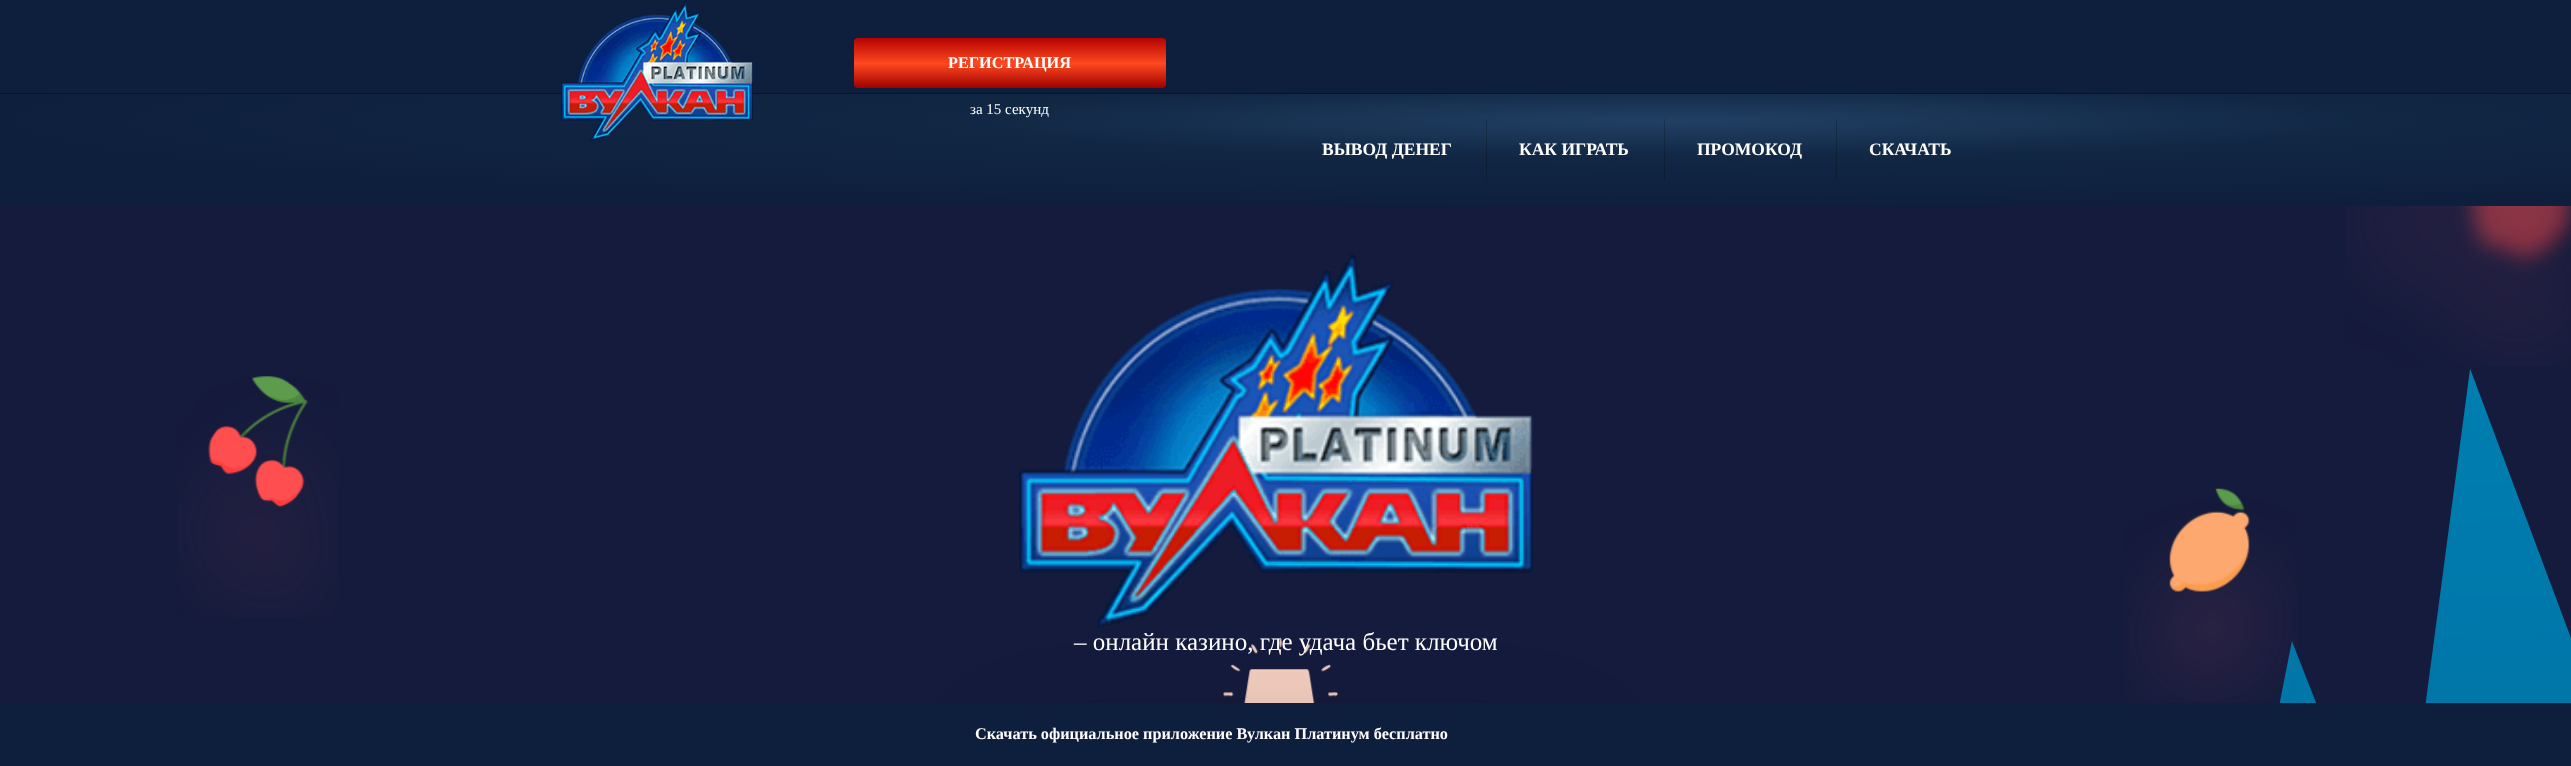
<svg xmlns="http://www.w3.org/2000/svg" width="2571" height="766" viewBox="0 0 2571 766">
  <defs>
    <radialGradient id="g1" gradientUnits="userSpaceOnUse" cx="0" cy="0" r="1" gradientTransform="matrix(2364 0 0 120 1671 121)"><stop offset="0" stop-color="rgb(33,64,100)"/><stop offset="0.3" stop-color="rgb(17,39,68)"/><stop offset="0.73" stop-color="rgb(14,31,61)"/><stop offset="1" stop-color="rgb(14,31,61)"/></radialGradient>
    <linearGradient id="g2" gradientUnits="userSpaceOnUse" x1="1010" y1="37" x2="1010" y2="88"><stop offset="0" stop-color="rgb(179,0,0)"/><stop offset="0.52" stop-color="rgb(255,72,31)"/><stop offset="1" stop-color="rgb(159,0,0)"/></linearGradient>
    <radialGradient id="g3" gradientUnits="userSpaceOnUse" cx="0" cy="0" r="1" gradientTransform="matrix(2364 0 0 120 1671 121)"><stop offset="0" stop-color="rgb(26,51,80)"/><stop offset="0.3" stop-color="rgb(14,31,54)"/><stop offset="0.73" stop-color="rgb(11,25,49)"/><stop offset="1" stop-color="rgb(11,25,49)"/></radialGradient>
  </defs>
  <rect width="100%" height="100%" fill="rgb(21,27,61)"/>
  <rect x="0" y="0" width="2571" height="93" fill="rgb(14,31,61)"/>
  <rect x="0" y="94" width="2571" height="112" fill="url(#g1)"/>
  <rect x="0" y="93" width="2571" height="1" fill="rgb(9,20,39)"/>
  <image x="561" y="1" width="192" height="140" href="pic1.png"/>
  <rect x="854" y="38" width="312" height="50" rx="4" fill="url(#g2)"/>
  <text x="948" y="68" font-family="Liberation Serif" font-size="16.25" font-weight="bold" fill="rgb(255,255,255)">РЕГИСТРАЦИЯ</text>
  <text x="970" y="114" font-family="Liberation Serif" font-size="15" fill="rgb(255,255,255)">за 15 секунд</text>
  <rect x="1836" y="119" width="1" height="62" fill="url(#g3)"/>
  <rect x="1664" y="119" width="1" height="62" fill="url(#g3)"/>
  <rect x="1486" y="119" width="1" height="62" fill="url(#g3)"/>
  <g font-family="Liberation Serif" font-size="17.5" font-weight="bold" fill="rgb(255,255,255)">
    <text x="1322" y="155">ВЫВОД ДЕНЕГ</text>
    <text x="1519" y="155">КАК ИГРАТЬ</text>
    <text x="1697" y="155">ПРОМОКОД</text>
    <text x="1869" y="155">СКАЧАТЬ</text>
  </g>
  <image x="2345" y="206" width="226" height="160" href="pic2.png"/>
  <image x="2279" y="368" width="292" height="335" href="pic6.png"/>
  <image x="2124" y="488" width="173" height="215" href="pic3.png"/>
  <image x="177" y="376" width="161" height="242" href="pic4.png"/>
  <image x="1223" y="637" width="116" height="66" href="pic5.png"/>
  <image x="1019" y="252" width="514" height="376" href="pic7.png"/>
  <rect x="999" y="750" width="575" height="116" rx="58" fill="rgba(0,0,0,0.26)" filter="blur(50.5px)"/>
  <text x="1074" y="650" font-family="Liberation Serif" font-size="25" fill="rgb(255,255,255)">– онлайн казино, где удача бьет ключом</text>
  <rect x="0" y="703" width="2571" height="63" fill="rgb(14,31,61)"/>
  <text x="975" y="739" font-family="Liberation Serif" font-size="16.25" font-weight="bold" fill="rgb(255,255,255)">Скачать официальное приложение Вулкан Платинум бесплатно</text>
</svg>
